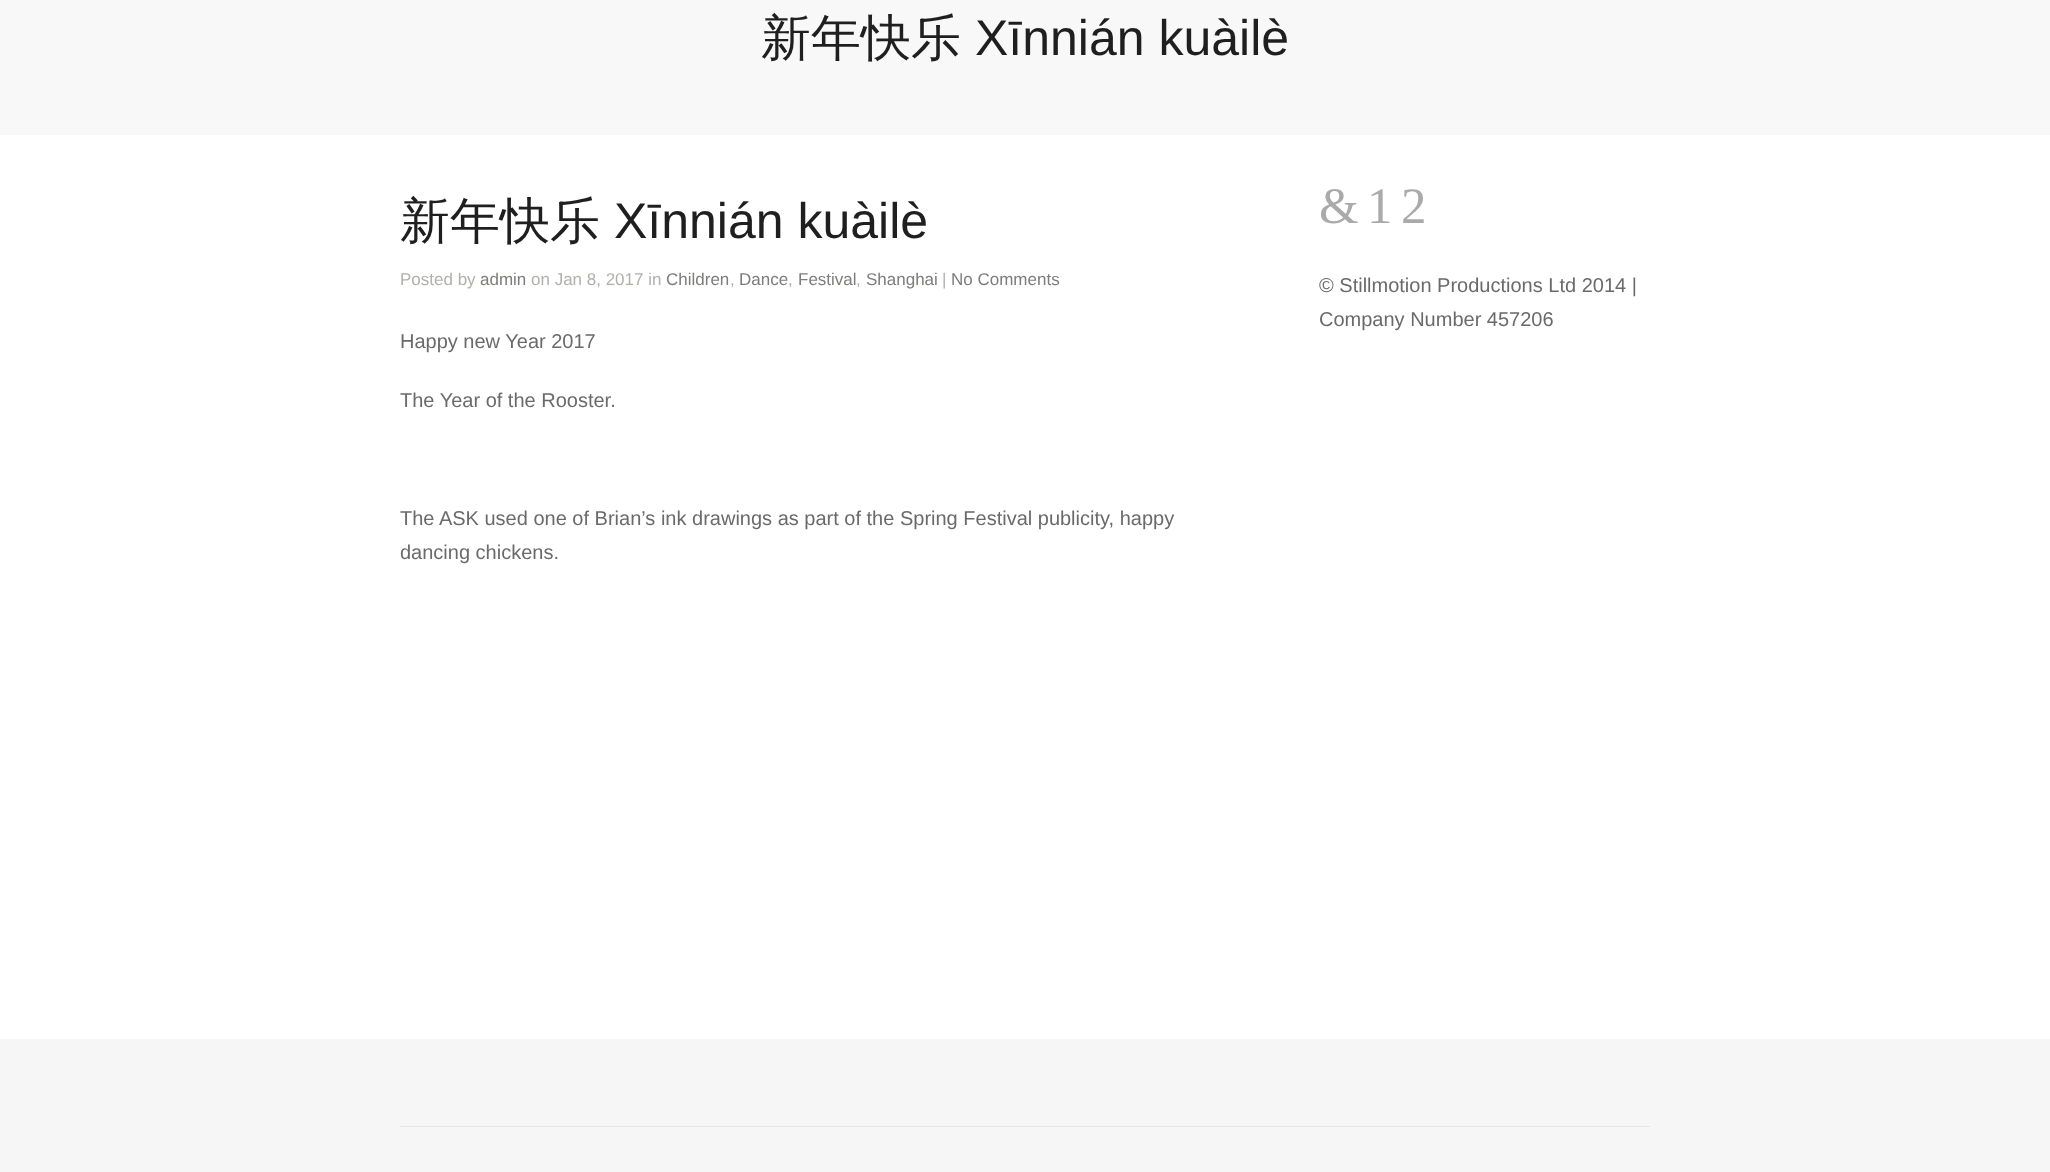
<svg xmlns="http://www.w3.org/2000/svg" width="2050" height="1172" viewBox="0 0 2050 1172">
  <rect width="100%" height="100%" fill="rgb(255,255,255)"/>
  <rect x="0" y="0" width="2050" height="135" fill="rgb(248,248,248)"/>
  <text x="761" y="55" font-family="WenQuanYi Zen Hei" font-size="50" font-weight="500" fill="rgb(31,31,31)">新年快乐</text>
  <text x="975" y="55" font-family="Liberation Sans" font-size="50" fill="rgb(31,31,31)">Xīnnián kuàilè</text>
  <text x="400" y="238" font-family="WenQuanYi Zen Hei" font-size="50" font-weight="500" fill="rgb(31,31,31)">新年快乐</text>
  <text x="614" y="238" font-family="Liberation Sans" font-size="50" fill="rgb(31,31,31)">Xīnnián kuàilè</text>
  <text x="400" y="285" font-family="Liberation Sans" font-size="17" fill="rgb(176,176,173)">Posted by</text>
  <text x="480" y="285" font-family="Liberation Sans" font-size="17" fill="rgb(125,125,123)">admin</text>
  <text x="531" y="285" font-family="Liberation Sans" font-size="17" fill="rgb(176,176,173)">on Jan 8, 2017 in</text>
  <text x="666" y="285" font-family="Liberation Sans" font-size="17" fill="rgb(125,125,123)">Children</text>
  <text x="730" y="285" font-family="Liberation Sans" font-size="17" fill="rgb(176,176,173)">,</text>
  <text x="739" y="285" font-family="Liberation Sans" font-size="17" fill="rgb(125,125,123)">Dance</text>
  <text x="788" y="285" font-family="Liberation Sans" font-size="17" fill="rgb(176,176,173)">,</text>
  <text x="798" y="285" font-family="Liberation Sans" font-size="17" fill="rgb(125,125,123)">Festival</text>
  <text x="856" y="285" font-family="Liberation Sans" font-size="17" fill="rgb(176,176,173)">,</text>
  <text x="866" y="285" font-family="Liberation Sans" font-size="17" fill="rgb(125,125,123)">Shanghai</text>
  <text x="942" y="285" font-family="Liberation Sans" font-size="17" fill="rgb(176,176,173)">|</text>
  <text x="951" y="285" font-family="Liberation Sans" font-size="17" fill="rgb(125,125,123)">No Comments</text>
  <g font-family="Liberation Sans" font-size="20" fill="rgb(106,106,106)">
    <text x="400" y="348">Happy new Year 2017</text>
    <text x="400" y="407">The Year of the Rooster.</text>
    <text>
      <tspan x="400" y="525">The ASK used one of Brian’s ink drawings as part of the Spring Festival publicity, happy</tspan>
      <tspan x="400" y="559">dancing chickens.</tspan>
    </text>
  </g>
  <g font-family="Liberation Serif" font-size="51" fill="rgb(170,170,170)">
    <text x="1319" y="223">&amp;</text>
    <text x="1367" y="223">1</text>
    <text x="1401" y="223">2</text>
  </g>
  <g font-family="Liberation Sans" font-size="20" fill="rgb(106,106,106)">
    <text>
      <tspan x="1319" y="292">© Stillmotion Productions Ltd 2014 |</tspan>
      <tspan x="1319" y="326">Company Number 457206</tspan>
    </text>
  </g>
  <rect x="0" y="1039" width="2050" height="133" fill="rgb(246,246,246)"/>
  <rect x="400" y="1126" width="1250" height="1" fill="rgb(229,229,229)"/>
</svg>
